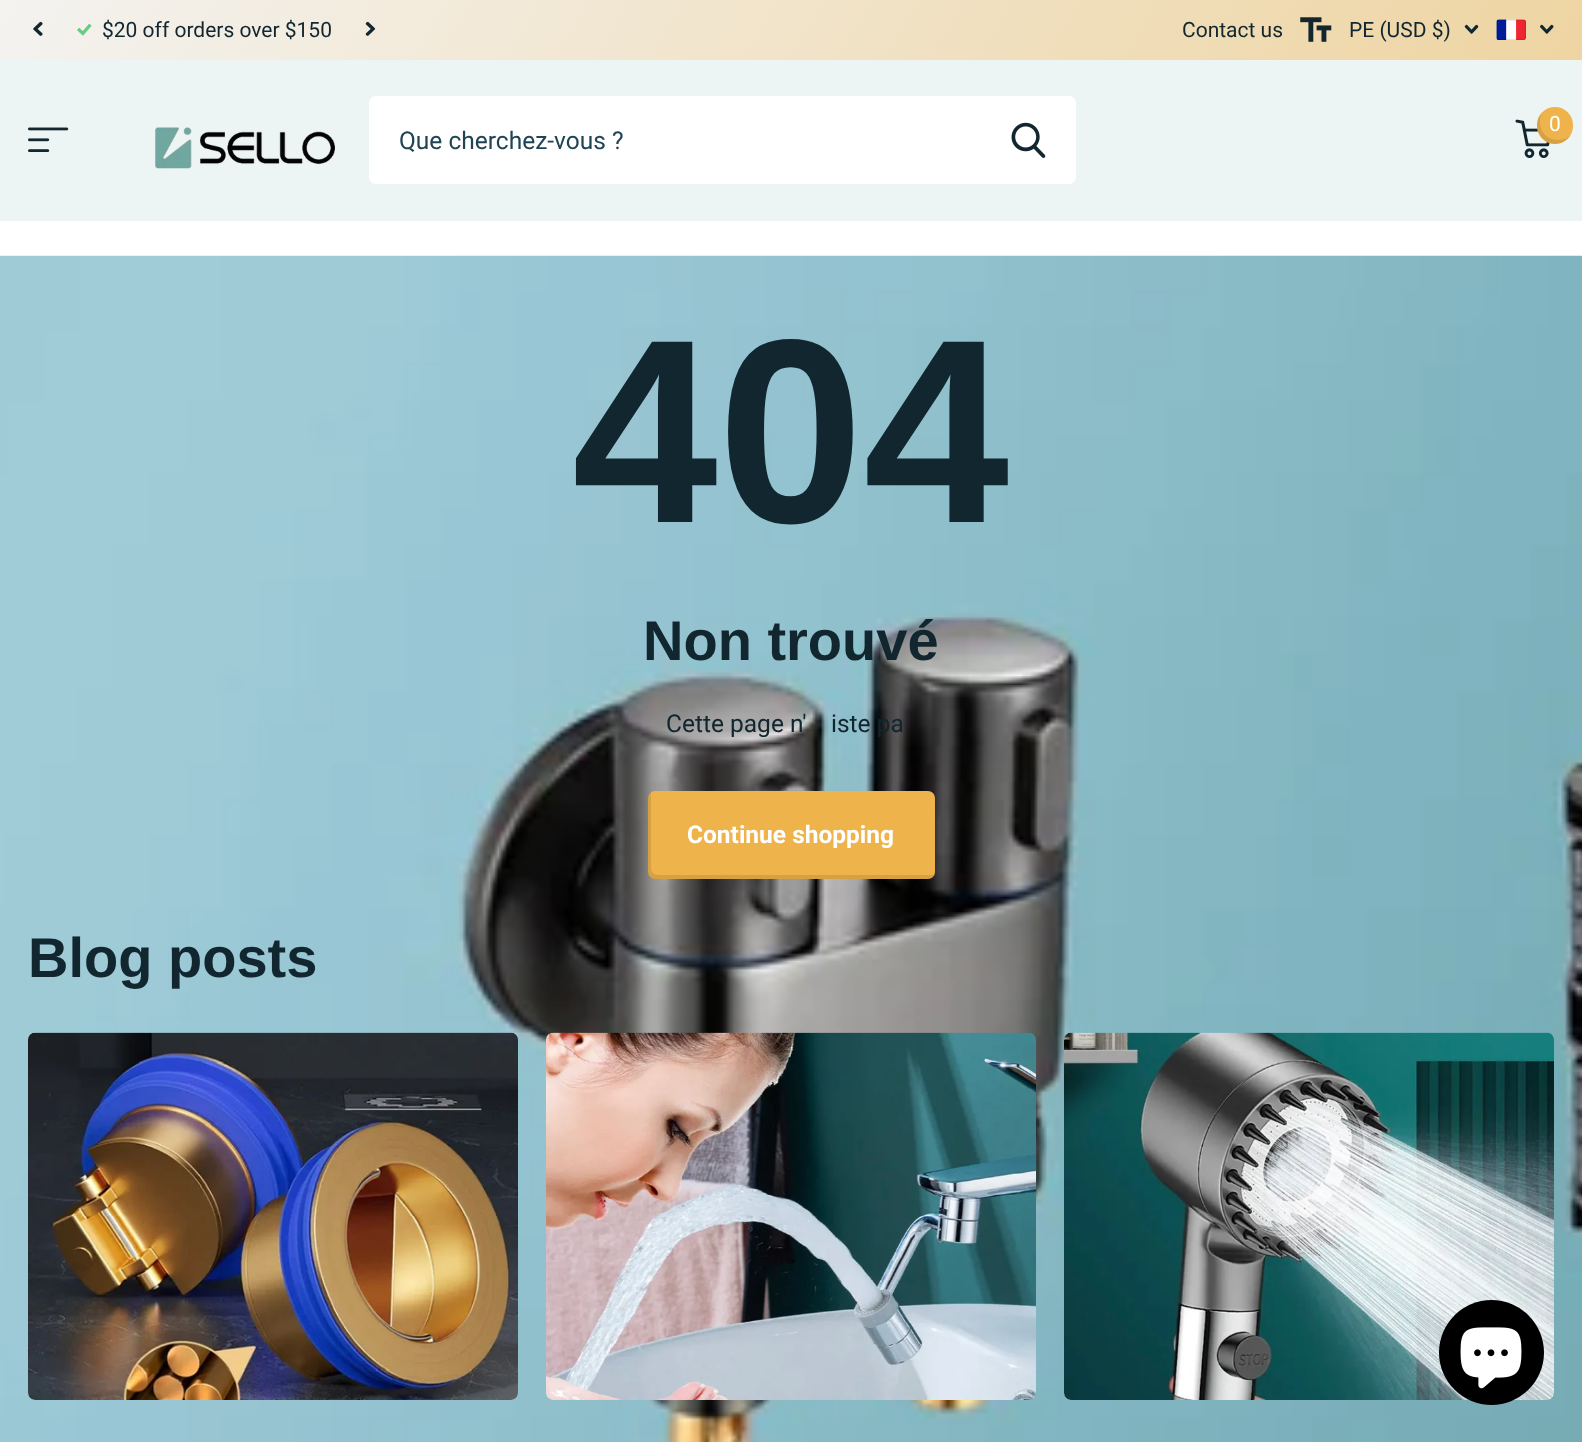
<svg xmlns="http://www.w3.org/2000/svg" width="1582" height="1442" viewBox="0 0 1582 1442">
  <defs>
    <linearGradient id="g1" gradientUnits="userSpaceOnUse" x1="126" y1="-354" x2="1456" y2="414"><stop offset="0" stop-color="rgb(244,244,244)"/><stop offset="1" stop-color="rgb(238,211,158)"/></linearGradient>
  </defs>
  <rect width="100%" height="100%" fill="rgb(255,255,255)"/>
  <rect x="0" y="0" width="1582" height="60" fill="url(#g1)"/>
  <image x="33" y="21" width="10" height="15" href="pic1.png"/>
  <image x="77" y="23" width="15" height="13" href="pic2.png"/>
  <text x="102" y="37" font-family="Roboto" font-size="21" fill="rgb(18,38,47)">$20 off orders over $150</text>
  <image x="365" y="21" width="11" height="15" href="pic3.png"/>
  <text x="1182" y="37" font-family="Roboto" font-size="21" fill="rgb(18,38,47)">Contact us</text>
  <image x="1300" y="17" width="32" height="25" href="pic4.png"/>
  <text x="1349" y="37" font-family="Roboto" font-size="21" fill="rgb(18,38,47)">PE (USD $)</text>
  <image x="1464" y="24" width="15" height="10" href="pic5.png"/>
  <image x="1496" y="19" width="30" height="21" href="pic6.png"/>
  <image x="1540" y="24" width="14" height="10" href="pic7.png"/>
  <rect x="0" y="60" width="1582" height="161" fill="rgb(237,244,244)"/>
  <image x="1515" y="119" width="35" height="39" href="pic8.png"/>
  <rect x="1537" y="107" width="36" height="37" rx="18" fill="rgb(239,179,76)"/>
  <path d="M1570.5 135.5C1567.5 138 1563.5 140 1558 140C1542 140 1536.5 123.5 1542 112.5C1535 119.5 1535.5 131.5 1542.5 138.5C1550.5 147 1564.5 145 1570.5 135.5Z" fill="rgba(0,0,0,0.1)"/>
  <text x="1549" y="131" font-family="Roboto" font-size="21" fill="rgb(255,255,255)">0</text>
  <image x="28" y="127" width="41" height="25" href="pic9.png"/>
  <image x="155" y="127" width="180" height="42" href="pic10.png"/>
  <rect x="369" y="96" width="707" height="88" rx="7" fill="rgb(255,255,255)"/>
  <text x="399" y="149" font-family="Roboto" font-size="24.5" fill="rgb(32,68,84)">Que cherchez-vous ?</text>
  <image x="1011" y="122" width="35" height="36" href="pic11.png"/>
  <image x="0" y="255" width="1582" height="1187" href="pic12.png"/>
  <text x="572" y="522" font-family="Liberation Sans" font-size="262" font-weight="bold" fill="rgb(18,38,47)">404</text>
  <text x="643" y="660" font-family="Liberation Sans" font-size="56" font-weight="bold" fill="rgb(18,38,47)">Non trouvé</text>
  <g font-family="Roboto" font-size="24.5" fill="rgb(18,38,47)">
    <text x="666" y="732">Cette page n'</text>
    <text x="831" y="732">iste pa</text>
  </g>
  <rect x="648" y="791" width="287" height="88" rx="7" fill="rgb(239,179,76)"/>
  <path d="M651 792C649 793 648 795 648 798V872C648 876 651 879 655 879H928C931 879 934 877 935 874C934 875 932 875 931 875H658C654 875 651 872 651 868V794Z" fill="rgba(0,0,0,0.1)"/>
  <text x="687" y="843" font-family="Roboto" font-size="24.5" font-weight="bold" fill="rgb(255,255,255)">Continue shopping</text>
  <text x="28" y="977" font-family="Liberation Sans" font-size="56" font-weight="bold" fill="rgb(18,38,47)">Blog posts</text>
  <image x="28" y="1032" width="490" height="368" href="pic13.png"/>
  <image x="546" y="1032" width="490" height="368" href="pic14.png"/>
  <image x="1064" y="1032" width="490" height="368" href="pic15.png"/>
  <circle cx="1491.5" cy="1352.5" r="52.5" fill="rgb(0,0,0)"/>
  <image x="1460" y="1327" width="62" height="62" href="pic16.png"/>
</svg>
